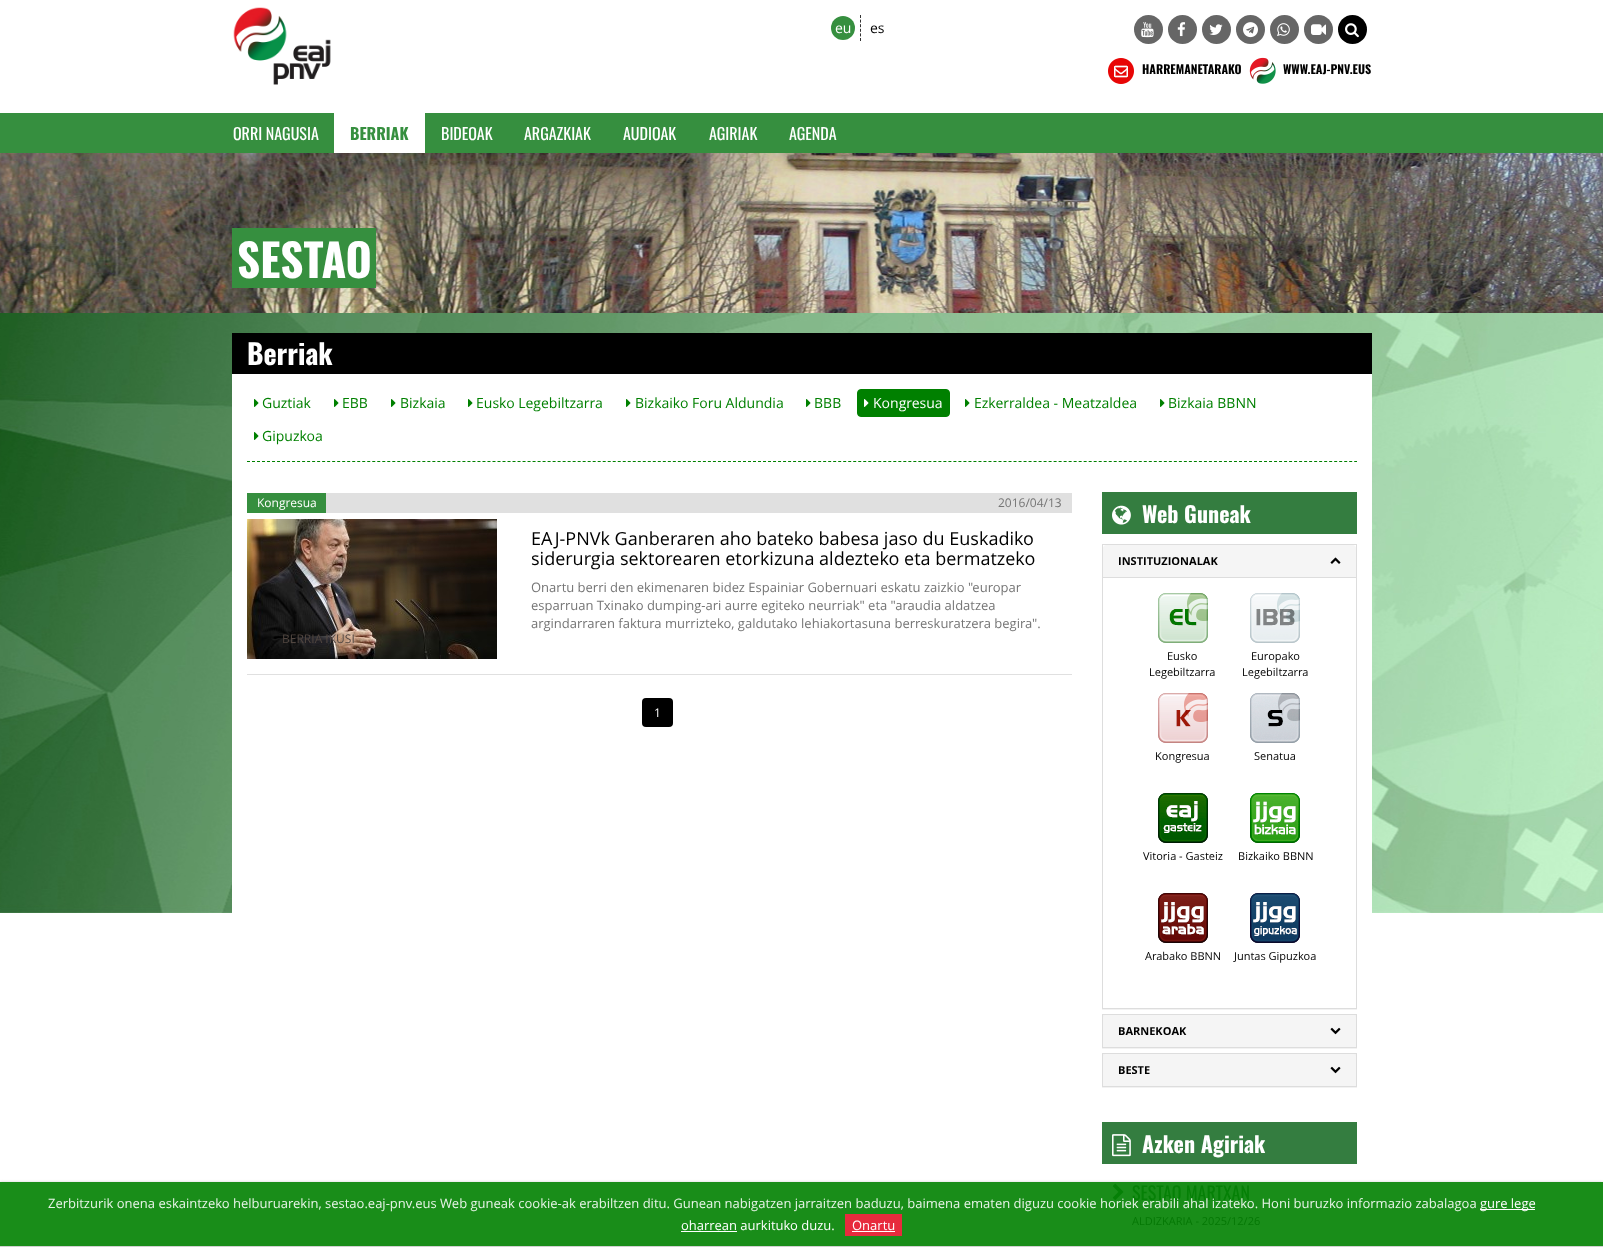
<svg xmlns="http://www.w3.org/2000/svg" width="1603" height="1247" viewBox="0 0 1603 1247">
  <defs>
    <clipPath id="clip1"><rect x="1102" y="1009" width="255" height="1"/></clipPath>
    <clipPath id="clip2"><rect x="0" y="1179" width="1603" height="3"/></clipPath>
  </defs>
  <rect width="100%" height="100%" fill="rgb(255,255,255)"/>
  <rect x="0" y="1182" width="1603" height="64" fill="rgb(25,141,25)"/>
  <image x="233" y="7" width="98" height="78" href="pic1.png"/>
  <path d="M860.5 15V41" fill="none" stroke="rgb(51,51,51)" stroke-dasharray="3 1.6"/>
  <circle cx="843" cy="28" r="12" fill="rgb(54,143,63)"/>
  <text x="835" y="33" font-family="Open Sans" font-size="14" fill="rgb(255,255,255)">eu</text>
  <text x="870" y="33" font-family="Open Sans" font-size="14" fill="rgb(0,0,0)">es</text>
  <circle cx="1148.5" cy="29.5" r="14.5" fill="rgb(102,102,102)"/>
  <image x="1141" y="22" width="13" height="16" href="pic2.png"/>
  <circle cx="1182.5" cy="29.5" r="14.5" fill="rgb(102,102,102)"/>
  <image x="1177" y="22" width="9" height="15" href="pic3.png"/>
  <circle cx="1216.5" cy="29.5" r="14.5" fill="rgb(102,102,102)"/>
  <image x="1209" y="24" width="14" height="11" href="pic4.png"/>
  <circle cx="1250.5" cy="29.5" r="14.5" fill="rgb(102,102,102)"/>
  <image x="1243" y="22" width="15" height="16" href="pic5.png"/>
  <circle cx="1284.5" cy="29.5" r="14.5" fill="rgb(102,102,102)"/>
  <image x="1277" y="23" width="13" height="13" href="pic6.png"/>
  <circle cx="1318.5" cy="29.5" r="14.5" fill="rgb(102,102,102)"/>
  <image x="1311" y="24" width="15" height="11" href="pic7.png"/>
  <circle cx="1352.5" cy="29.5" r="14.5" fill="rgb(0,0,0)"/>
  <image x="1345" y="23" width="14" height="15" href="pic8.png"/>
  <image x="1108" y="58" width="26" height="26" href="pic9.png"/>
  <text x="1142" y="74" font-family="Oswald" font-size="12" font-weight="bold" fill="rgb(0,0,0)">HARREMANETARAKO</text>
  <image x="1249" y="57" width="27" height="27" href="pic10.png"/>
  <text x="1283" y="74" font-family="Oswald" font-size="12" font-weight="bold" fill="rgb(0,0,0)">WWW.EAJ-PNV.EUS</text>
  <rect x="0" y="113" width="1603" height="40" fill="rgb(54,143,63)"/>
  <text x="233" y="140" font-family="Oswald" font-size="16" fill="rgb(255,255,255)">ORRI NAGUSIA</text>
  <rect x="334" y="113" width="91" height="40" fill="rgb(255,255,255)"/>
  <text x="350" y="140" font-family="Oswald" font-size="16" font-weight="bold" fill="rgb(54,143,63)">BERRIAK</text>
  <g font-family="Oswald" font-size="16" fill="rgb(255,255,255)">
    <text x="441" y="140">BIDEOAK</text>
    <text x="524" y="140">ARGAZKIAK</text>
    <text x="623" y="140">AUDIOAK</text>
    <text x="709" y="140">AGIRIAK</text>
    <text x="789" y="140">AGENDA</text>
  </g>
  <image x="0" y="153" width="1603" height="160" href="pic11.png"/>
  <rect x="232" y="228" width="144" height="60" fill="rgb(54,143,63)"/>
  <text x="237" y="278" font-family="Oswald" font-size="45" font-weight="bold" fill="rgb(255,255,255)">SESTAO</text>
  <image x="0" y="313" width="1603" height="600" href="pic12.png"/>
  <rect x="232" y="333" width="1140" height="41" fill="rgb(0,0,0)"/>
  <text x="247" y="365" font-family="Oswald" font-size="28" font-weight="bold" fill="rgb(255,255,255)">Berriak</text>
  <rect x="232" y="374" width="1140" height="539" fill="rgb(255,255,255)"/>
  <image x="254" y="399" width="5" height="8" href="pic13.png"/>
  <text x="262" y="408" font-family="Open Sans" font-size="14" fill="rgb(0,128,0)">Guztiak</text>
  <image x="334" y="399" width="5" height="8" href="pic13.png"/>
  <text x="342" y="408" font-family="Open Sans" font-size="14" fill="rgb(0,128,0)">EBB</text>
  <image x="391" y="399" width="5" height="8" href="pic13.png"/>
  <text x="400" y="408" font-family="Open Sans" font-size="14" fill="rgb(0,128,0)">Bizkaia</text>
  <image x="468" y="399" width="5" height="8" href="pic13.png"/>
  <text x="476" y="408" font-family="Open Sans" font-size="14" fill="rgb(0,128,0)">Eusko Legebiltzarra</text>
  <image x="626" y="399" width="5" height="8" href="pic13.png"/>
  <text x="635" y="408" font-family="Open Sans" font-size="14" fill="rgb(0,128,0)">Bizkaiko Foru Aldundia</text>
  <image x="806" y="399" width="5" height="8" href="pic13.png"/>
  <text x="814" y="408" font-family="Open Sans" font-size="14" fill="rgb(0,128,0)">BBB</text>
  <rect x="857.5" y="389.5" width="92" height="27" rx="3.5" fill="rgb(0,128,0)" stroke="rgb(0,128,0)"/>
  <image x="864" y="399" width="5" height="8" href="pic14.png"/>
  <text x="873" y="408" font-family="Open Sans" font-size="14" fill="rgb(255,255,255)">Kongresua</text>
  <image x="965" y="399" width="5" height="8" href="pic13.png"/>
  <text x="974" y="408" font-family="Open Sans" font-size="14" fill="rgb(0,128,0)">Ezkerraldea - Meatzaldea</text>
  <image x="1160" y="399" width="5" height="8" href="pic13.png"/>
  <text x="1168" y="408" font-family="Open Sans" font-size="14" fill="rgb(0,128,0)">Bizkaia BBNN</text>
  <image x="254" y="432" width="5" height="8" href="pic13.png"/>
  <text x="262" y="441" font-family="Open Sans" font-size="14" fill="rgb(0,128,0)">Gipuzkoa</text>
  <path d="M247 461.5H1357" fill="none" stroke="rgb(0,128,0)" stroke-dasharray="3 2.01"/>
  <rect x="247" y="674" width="825" height="1" fill="rgb(224,224,224)"/>
  <rect x="326" y="493" width="746" height="20" fill="rgb(224,224,224)"/>
  <rect x="247" y="493" width="79" height="20" fill="rgb(54,143,63)"/>
  <text x="257" y="507" font-family="Open Sans" font-size="12" fill="rgb(255,255,255)">Kongresua</text>
  <text x="998" y="507" font-family="Open Sans" font-size="12" fill="rgb(117,117,117)">2016/04/13</text>
  <g font-family="Open Sans" font-size="18" fill="rgb(0,0,0)">
    <text>
      <tspan x="531" y="545">EAJ-PNVk Ganberaren aho bateko babesa jaso du Euskadiko</tspan>
      <tspan x="531" y="565">siderurgia sektorearen etorkizuna aldezteko eta bermatzeko</tspan>
    </text>
  </g>
  <g font-family="Open Sans" font-size="13" fill="rgb(117,117,117)">
    <text>
      <tspan x="531" y="592">Onartu berri den ekimenaren bidez Espainiar Gobernuari eskatu zaizkio "europar</tspan>
      <tspan x="531" y="610">esparruan Txinako dumping-ari aurre egiteko neurriak" eta "araudia aldatzea</tspan>
      <tspan x="531" y="628">argindarraren faktura murrizteko, galdutako lehiakortasuna berreskuratzera begira".</tspan>
    </text>
  </g>
  <image x="247" y="519" width="250" height="140" href="pic15.png"/>
  <text x="282" y="643" font-family="Open Sans" font-size="12" fill="rgb(81,70,64)">BERRIA IKUSI</text>
  <rect x="642" y="698" width="31" height="29" rx="4" fill="rgb(0,0,0)"/>
  <text x="654" y="717" font-family="Open Sans" font-size="12" fill="rgb(255,255,255)">1</text>
  <rect x="1102" y="492" width="255" height="42" fill="rgb(52,125,64)"/>
  <image x="1112" y="505" width="19" height="20" href="pic16.png"/>
  <text x="1142" y="523" font-family="Oswald" font-size="22" font-weight="bold" fill="rgb(255,255,255)">Web Guneak</text>
  <g clip-path="url(#clip1)">
    <rect x="1102" y="545" width="255" height="465" fill="rgba(0,0,0,0.05)" filter="blur(0.5px)"/>
  </g>
  <rect x="1102.5" y="544.5" width="254" height="464" fill="none" stroke="rgb(221,221,221)"/>
  <path d="M1106 545H1353C1354.5 545 1356 546.5 1356 548V577H1103V548C1103 546.5 1104.5 545 1106 545Z" fill="rgb(245,245,245)"/>
  <text x="1118" y="565" font-family="Open Sans" font-size="11" font-weight="bold" fill="rgb(0,0,0)">INSTITUZIONALAK</text>
  <image x="1330" y="557" width="11" height="7" href="pic17.png"/>
  <rect x="1103" y="577" width="253" height="1" fill="rgb(221,221,221)"/>
  <image x="1158" y="593" width="50" height="50" href="pic18.png"/>
  <g font-family="Open Sans" font-size="11" fill="rgb(0,0,0)">
    <text x="1167" y="660">Eusko</text>
    <text x="1149" y="676">Legebiltzarra</text>
  </g>
  <image x="1250" y="593" width="50" height="50" href="pic19.png"/>
  <g font-family="Open Sans" font-size="11" fill="rgb(0,0,0)">
    <text x="1251" y="660">Europako</text>
    <text x="1242" y="676">Legebiltzarra</text>
  </g>
  <image x="1158" y="693" width="50" height="50" href="pic20.png"/>
  <text x="1155" y="760" font-family="Open Sans" font-size="11" fill="rgb(0,0,0)">Kongresua</text>
  <image x="1250" y="693" width="50" height="50" href="pic21.png"/>
  <text x="1254" y="760" font-family="Open Sans" font-size="11" fill="rgb(0,0,0)">Senatua</text>
  <image x="1158" y="793" width="50" height="50" href="pic22.png"/>
  <text x="1143" y="860" font-family="Open Sans" font-size="11" fill="rgb(0,0,0)">Vitoria - Gasteiz</text>
  <image x="1250" y="793" width="50" height="50" href="pic23.png"/>
  <text x="1238" y="860" font-family="Open Sans" font-size="11" fill="rgb(0,0,0)">Bizkaiko BBNN</text>
  <image x="1158" y="893" width="50" height="50" href="pic24.png"/>
  <text x="1145" y="960" font-family="Open Sans" font-size="11" fill="rgb(0,0,0)">Arabako BBNN</text>
  <image x="1250" y="893" width="50" height="50" href="pic25.png"/>
  <text x="1234" y="960" font-family="Open Sans" font-size="11" fill="rgb(0,0,0)">Juntas Gipuzkoa</text>
  <rect x="1102" y="1015" width="255" height="34" fill="rgba(0,0,0,0.05)" filter="blur(0.5px)"/>
  <rect x="1102.5" y="1014.5" width="254" height="33" fill="none" stroke="rgb(221,221,221)"/>
  <path d="M1106 1015H1353C1354.5 1015 1356 1016.5 1356 1018V1047H1103V1018C1103 1016.5 1104.5 1015 1106 1015Z" fill="rgb(245,245,245)"/>
  <text x="1118" y="1035" font-family="Open Sans" font-size="11" font-weight="bold" fill="rgb(0,0,0)">BARNEKOAK</text>
  <image x="1330" y="1027" width="11" height="8" href="pic26.png"/>
  <rect x="1102" y="1054" width="255" height="34" fill="rgba(0,0,0,0.05)" filter="blur(0.5px)"/>
  <rect x="1102.5" y="1053.5" width="254" height="33" fill="none" stroke="rgb(221,221,221)"/>
  <path d="M1106 1054H1353C1354.5 1054 1356 1055.5 1356 1057V1086H1103V1057C1103 1055.5 1104.5 1054 1106 1054Z" fill="rgb(245,245,245)"/>
  <text x="1118" y="1074" font-family="Open Sans" font-size="11" font-weight="bold" fill="rgb(0,0,0)">BESTE</text>
  <image x="1330" y="1066" width="11" height="8" href="pic26.png"/>
  <rect x="1102" y="1122" width="255" height="42" fill="rgb(52,125,64)"/>
  <image x="1112" y="1134" width="19" height="23" href="pic27.png"/>
  <text x="1142" y="1153" font-family="Oswald" font-size="22" font-weight="bold" fill="rgb(255,255,255)">Azken Agiriak</text>
  <image x="1112" y="1183" width="12" height="17" href="pic28.png"/>
  <text x="1132" y="1200" font-family="Oswald" font-size="18" fill="rgb(5,128,6)">SESTAO MARTXAN</text>
  <text x="1132" y="1225" font-family="Open Sans" font-size="11" fill="rgb(5,120,5)">ALDIZKARIA - 2025/12/26</text>
  <g clip-path="url(#clip2)">
    <rect x="0" y="1182" width="1603" height="65" fill="rgb(209,209,209)" filter="blur(1.5px)"/>
  </g>
  <rect x="0" y="1246" width="1603" height="1" fill="rgb(209,209,209)"/>
  <text x="48" y="1208" font-family="Open Sans" font-size="13" fill="rgb(232,244,232)">Zerbitzurik onena eskaintzeko helburuarekin, sestao.eaj-pnv.eus Web guneak cookie-ak erabiltzen ditu. Gunean nabigatzen jarraitzen baduzu, baimena ematen diguzu cookie horiek erabili ahal izateko. Honi buruzko informazio zabalagoa</text>
  <rect x="1480" y="1209" width="55" height="1" fill="rgb(255,255,255)"/>
  <g font-family="Open Sans" font-size="13" fill="rgb(255,255,255)">
    <text x="1480" y="1208">gure lege</text>
    <text x="681" y="1230">oharrean aurkituko duzu.</text>
  </g>
  <rect x="681" y="1231" width="56" height="1" fill="rgb(255,255,255)"/>
  <rect x="845" y="1214" width="57" height="22" fill="rgb(231,43,61)"/>
  <text x="852" y="1230" font-family="Open Sans" font-size="13" fill="rgb(255,255,255)">Onartu</text>
  <rect x="852" y="1231" width="43" height="1" fill="rgb(255,255,255)"/>
</svg>
